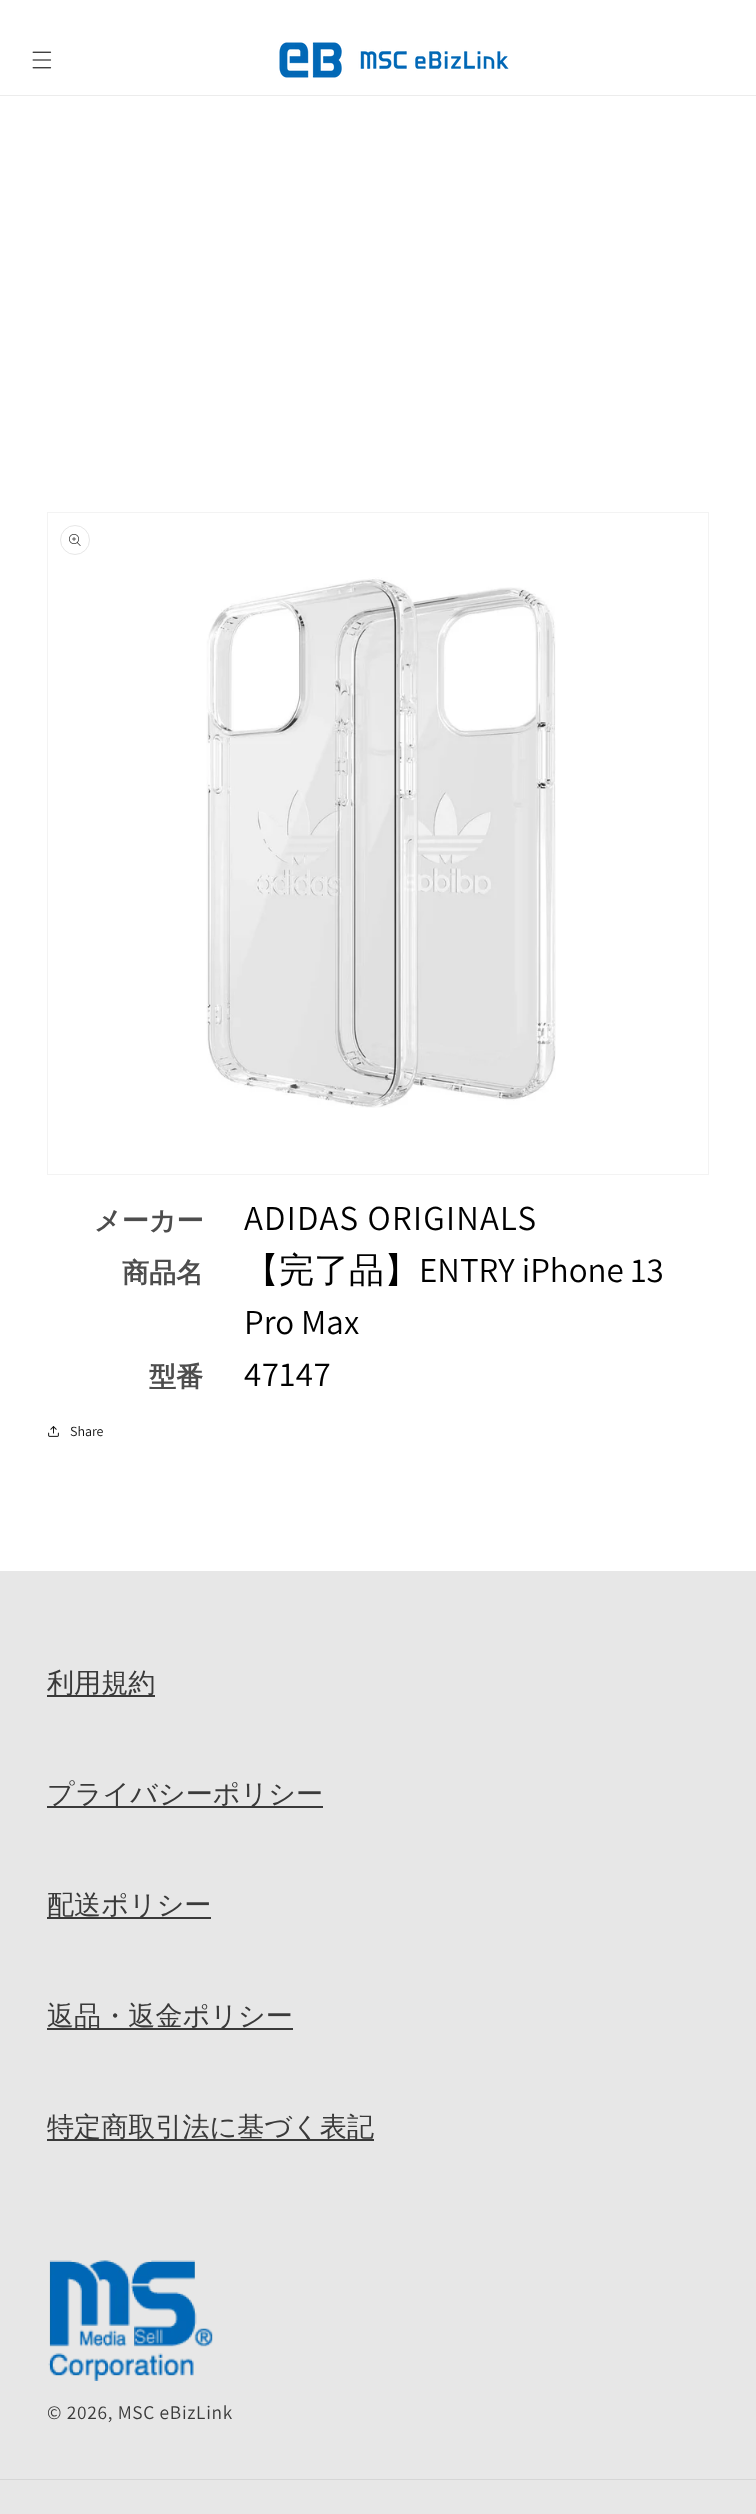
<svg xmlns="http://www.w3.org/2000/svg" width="756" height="2514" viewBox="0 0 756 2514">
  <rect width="100%" height="100%" fill="rgb(255,255,255)"/>
  <rect x="0" y="95" width="756" height="1" fill="rgb(236,236,236)"/>
  <image x="32" y="51" width="20" height="18" href="pic1.png"/>
  <image x="279" y="42" width="230" height="36" href="pic2.png"/>
  <rect x="47.5" y="512.5" width="661" height="662" fill="none" stroke="rgb(243,243,243)"/>
  <circle cx="75" cy="540" r="14.5" fill="none" stroke="rgb(231,231,231)"/>
  <image x="69" y="534" width="12" height="12" href="pic3.png"/>
  <image x="206" y="577" width="350" height="531" href="pic4.png"/>
  <text x="94" y="1230" font-family="WenQuanYi Zen Hei" font-size="27.1" font-weight="bold" fill="rgb(77,77,77)">メーカー</text>
  <text x="244" y="1230" font-family="Assistant" font-size="35" letter-spacing="1.25" fill="rgb(0,0,0)">ADIDAS ORIGINALS</text>
  <text x="122" y="1282" font-family="WenQuanYi Zen Hei" font-size="27.1" font-weight="bold" fill="rgb(77,77,77)">商品名</text>
  <text x="244" y="1282" font-family="WenQuanYi Zen Hei" font-size="35" font-weight="500" fill="rgb(0,0,0)">【完了品】</text>
  <g font-family="Assistant" font-size="35" fill="rgb(0,0,0)">
    <text x="419" y="1282">ENTRY iPhone 13</text>
    <text x="244" y="1334">Pro Max</text>
  </g>
  <text x="149" y="1386" font-family="WenQuanYi Zen Hei" font-size="27.1" font-weight="bold" fill="rgb(77,77,77)">型番</text>
  <text x="244" y="1386" font-family="Assistant" font-size="35" letter-spacing="0.5" fill="rgb(0,0,0)">47147</text>
  <image x="48" y="1426" width="11" height="11" href="pic5.png"/>
  <text x="70" y="1436" font-family="Assistant" font-size="14" fill="rgb(18,18,18)">Share</text>
  <rect x="0" y="1571" width="756" height="943" fill="rgb(231,231,231)"/>
  <rect x="47" y="1695" width="108" height="2" fill="rgb(58,58,58)"/>
  <text x="47" y="1692" font-family="WenQuanYi Zen Hei" font-size="27.1" font-weight="500" fill="rgb(58,58,58)">利用規約</text>
  <rect x="47" y="1806" width="276" height="2" fill="rgb(58,58,58)"/>
  <text x="47" y="1803" font-family="WenQuanYi Zen Hei" font-size="27.1" font-weight="500" fill="rgb(58,58,58)">プライバシーポリシー</text>
  <rect x="47" y="1917" width="164" height="2" fill="rgb(58,58,58)"/>
  <text x="47" y="1914" font-family="WenQuanYi Zen Hei" font-size="27.1" font-weight="500" fill="rgb(58,58,58)">配送ポリシー</text>
  <rect x="47" y="2028" width="246" height="2" fill="rgb(58,58,58)"/>
  <text x="47" y="2025" font-family="WenQuanYi Zen Hei" font-size="27.1" font-weight="500" fill="rgb(58,58,58)">返品・返金ポリシー</text>
  <rect x="47" y="2139" width="327" height="2" fill="rgb(58,58,58)"/>
  <text x="47" y="2136" font-family="WenQuanYi Zen Hei" font-size="27.1" font-weight="500" fill="rgb(58,58,58)">特定商取引法に基づく表記</text>
  <image x="48" y="2260" width="165" height="121" href="pic6.png"/>
  <text x="47" y="2419" font-family="Assistant" font-size="19.4" letter-spacing="0.7" fill="rgb(58,58,58)">© 2026, MSC eBizLink</text>
  <rect x="0" y="2479" width="756" height="1" fill="rgb(213,213,213)"/>
</svg>
